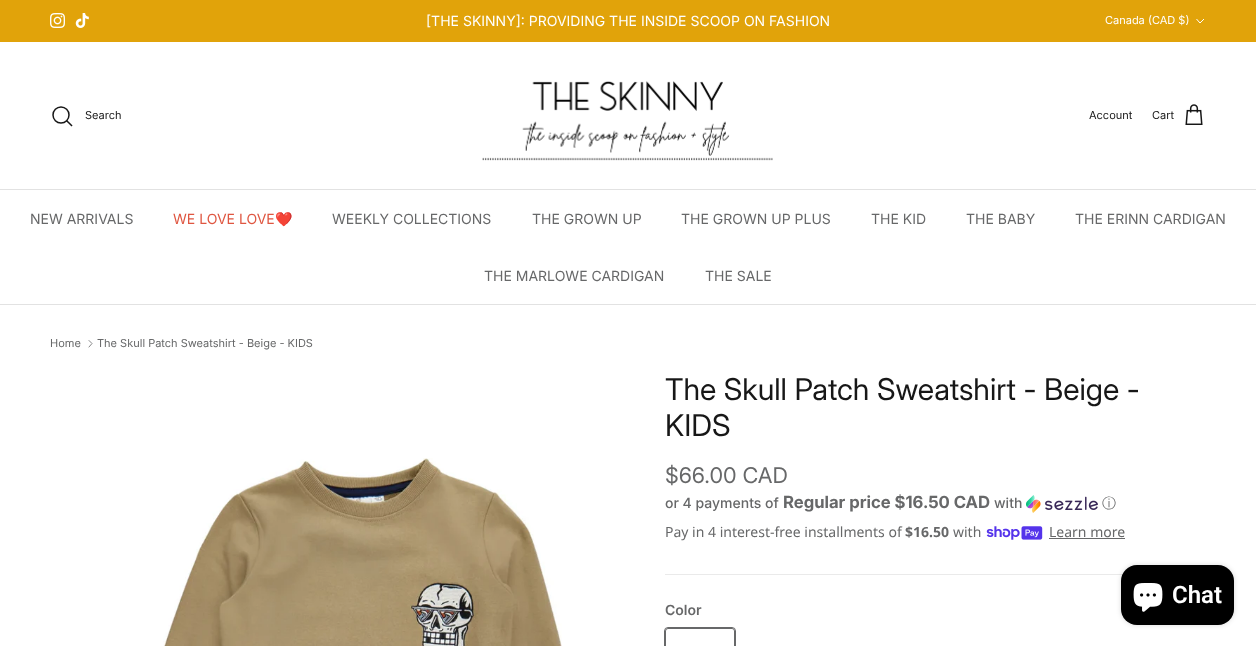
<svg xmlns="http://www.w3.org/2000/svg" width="1256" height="646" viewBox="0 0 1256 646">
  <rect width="100%" height="100%" fill="rgb(255,255,255)"/>
  <rect x="0" y="0" width="1256" height="42" fill="rgb(225,163,10)"/>
  <image x="50" y="13" width="15" height="15" href="pic1.png"/>
  <image x="75" y="13" width="14" height="15" href="pic2.png"/>
  <text x="426" y="26" font-family="Inter" font-size="14" fill="rgb(255,255,255)">[THE SKINNY]: PROVIDING THE INSIDE SCOOP ON FASHION</text>
  <text x="1105" y="24" font-family="Inter" font-size="11" fill="rgb(255,255,255)">Canada (CAD $)</text>
  <path d="M1204 19L1200 23L1196.5 19" fill="none" stroke="rgb(255,255,255)"/>
  <rect x="0" y="189" width="1256" height="1" fill="rgb(226,226,226)"/>
  <circle cx="61" cy="115" r="8" fill="none" stroke="rgb(23,23,23)" stroke-width="1.5"/>
  <text x="85" y="119" font-family="Inter" font-size="11" fill="rgb(23,23,23)">Search</text>
  <path d="M67 121L71.5 125.5" fill="none" stroke="rgb(23,23,23)" stroke-width="1.5" stroke-linecap="square"/>
  <image x="482" y="81" width="291" height="80" href="pic3.png"/>
  <g font-family="Inter" font-size="11" fill="rgb(23,23,23)">
    <text x="1089" y="119">Account</text>
    <text x="1152" y="119">Cart</text>
  </g>
  <image x="1185" y="104" width="18" height="21" href="pic4.png"/>
  <rect x="0" y="304" width="1256" height="1" fill="rgb(226,226,226)"/>
  <text x="30" y="224" font-family="Inter" font-size="14" fill="rgb(103,104,105)">NEW ARRIVALS</text>
  <text x="173" y="224" font-family="Inter" font-size="14" fill="rgb(223,86,65)">WE LOVE LOVE</text>
  <text x="275" y="224" font-family="Noto Color Emoji" font-size="14" fill="rgb(223,86,65)">❤️</text>
  <g font-family="Inter" font-size="14" fill="rgb(103,104,105)">
    <text x="332" y="224">WEEKLY COLLECTIONS</text>
    <text x="532" y="224">THE GROWN UP</text>
    <text x="681" y="224">THE GROWN UP PLUS</text>
    <text x="871" y="224">THE KID</text>
    <text x="966" y="224">THE BABY</text>
    <text x="1075" y="224">THE ERINN CARDIGAN</text>
    <text x="484" y="281">THE MARLOWE CARDIGAN</text>
    <text x="705" y="281">THE SALE</text>
  </g>
  <text x="50" y="347" font-family="Inter" font-size="11" fill="rgb(103,104,105)">Home</text>
  <path d="M89 347L92 343.5L89 340.5" fill="none" stroke="rgb(103,104,105)" stroke-width="0.8" stroke-linecap="round" stroke-linejoin="round"/>
  <text x="97" y="347" font-family="Inter" font-size="11" fill="rgb(103,104,105)">The Skull Patch Sweatshirt - Beige - KIDS</text>
  <image x="163" y="458" width="399" height="188" href="pic5.png"/>
  <g font-family="'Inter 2'" font-size="30" fill="rgb(23,23,23)">
    <text>
      <tspan x="665" y="400">The Skull Patch Sweatshirt - Beige -</tspan>
      <tspan x="665" y="436">KIDS</tspan>
    </text>
  </g>
  <text x="665" y="483" font-family="'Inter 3'" font-size="21.75" fill="rgb(103,104,105)">$66.00 CAD</text>
  <text x="665" y="508" font-family="Inter" font-size="14" font-weight="500" fill="rgb(103,104,105)">or 4 payments of</text>
  <text x="783" y="508" font-family="Inter" font-size="16.75" font-weight="bold" fill="rgb(103,104,105)">Regular price $16.50 CAD</text>
  <text x="994" y="508" font-family="Inter" font-size="14" font-weight="500" fill="rgb(103,104,105)">with</text>
  <image x="1026" y="495" width="72" height="18" href="pic6.png"/>
  <text x="1102" y="508" font-family="WenQuanYi Zen Hei" font-size="14" font-weight="500" fill="rgb(103,104,105)">ⓘ</text>
  <text x="665" y="537" font-family="Noto Sans" font-size="14" fill="rgb(103,104,105)">Pay in 4 interest-free installments of</text>
  <text x="905" y="537" font-family="Noto Sans" font-size="14" font-weight="bold" fill="rgb(103,104,105)">$16.50</text>
  <text x="953" y="537" font-family="Noto Sans" font-size="14" fill="rgb(103,104,105)">with</text>
  <image x="986" y="526" width="57" height="14" href="pic7.png"/>
  <text x="1049" y="537" font-family="Noto Sans" font-size="14" fill="rgb(103,104,105)">Learn more</text>
  <rect x="1049" y="538" width="76" height="1" fill="rgb(103,104,105)"/>
  <rect x="665" y="574" width="458" height="1" fill="rgb(234,234,234)"/>
  <text x="665" y="615" font-family="Inter" font-size="14" font-weight="600" fill="rgb(103,104,105)">Color</text>
  <rect x="664.5" y="627.5" width="71" height="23" rx="3.5" fill="none" stroke="rgb(103,104,105)"/>
  <rect x="665.5" y="628.5" width="69" height="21" rx="2.5" fill="rgb(255,255,255)" stroke="rgb(103,104,105)"/>
  <rect x="1121" y="565" width="113" height="60" rx="16" fill="rgba(0,0,0,0.15)" filter="blur(2.5px)"/>
  <rect x="1121" y="565" width="113" height="60" rx="16" fill="rgb(0,0,0)"/>
  <image x="1133" y="583" width="30" height="29" href="pic8.png"/>
  <text x="1172" y="603" font-family="Roboto" font-size="24" font-weight="600" fill="rgb(255,255,255)">Chat</text>
</svg>
